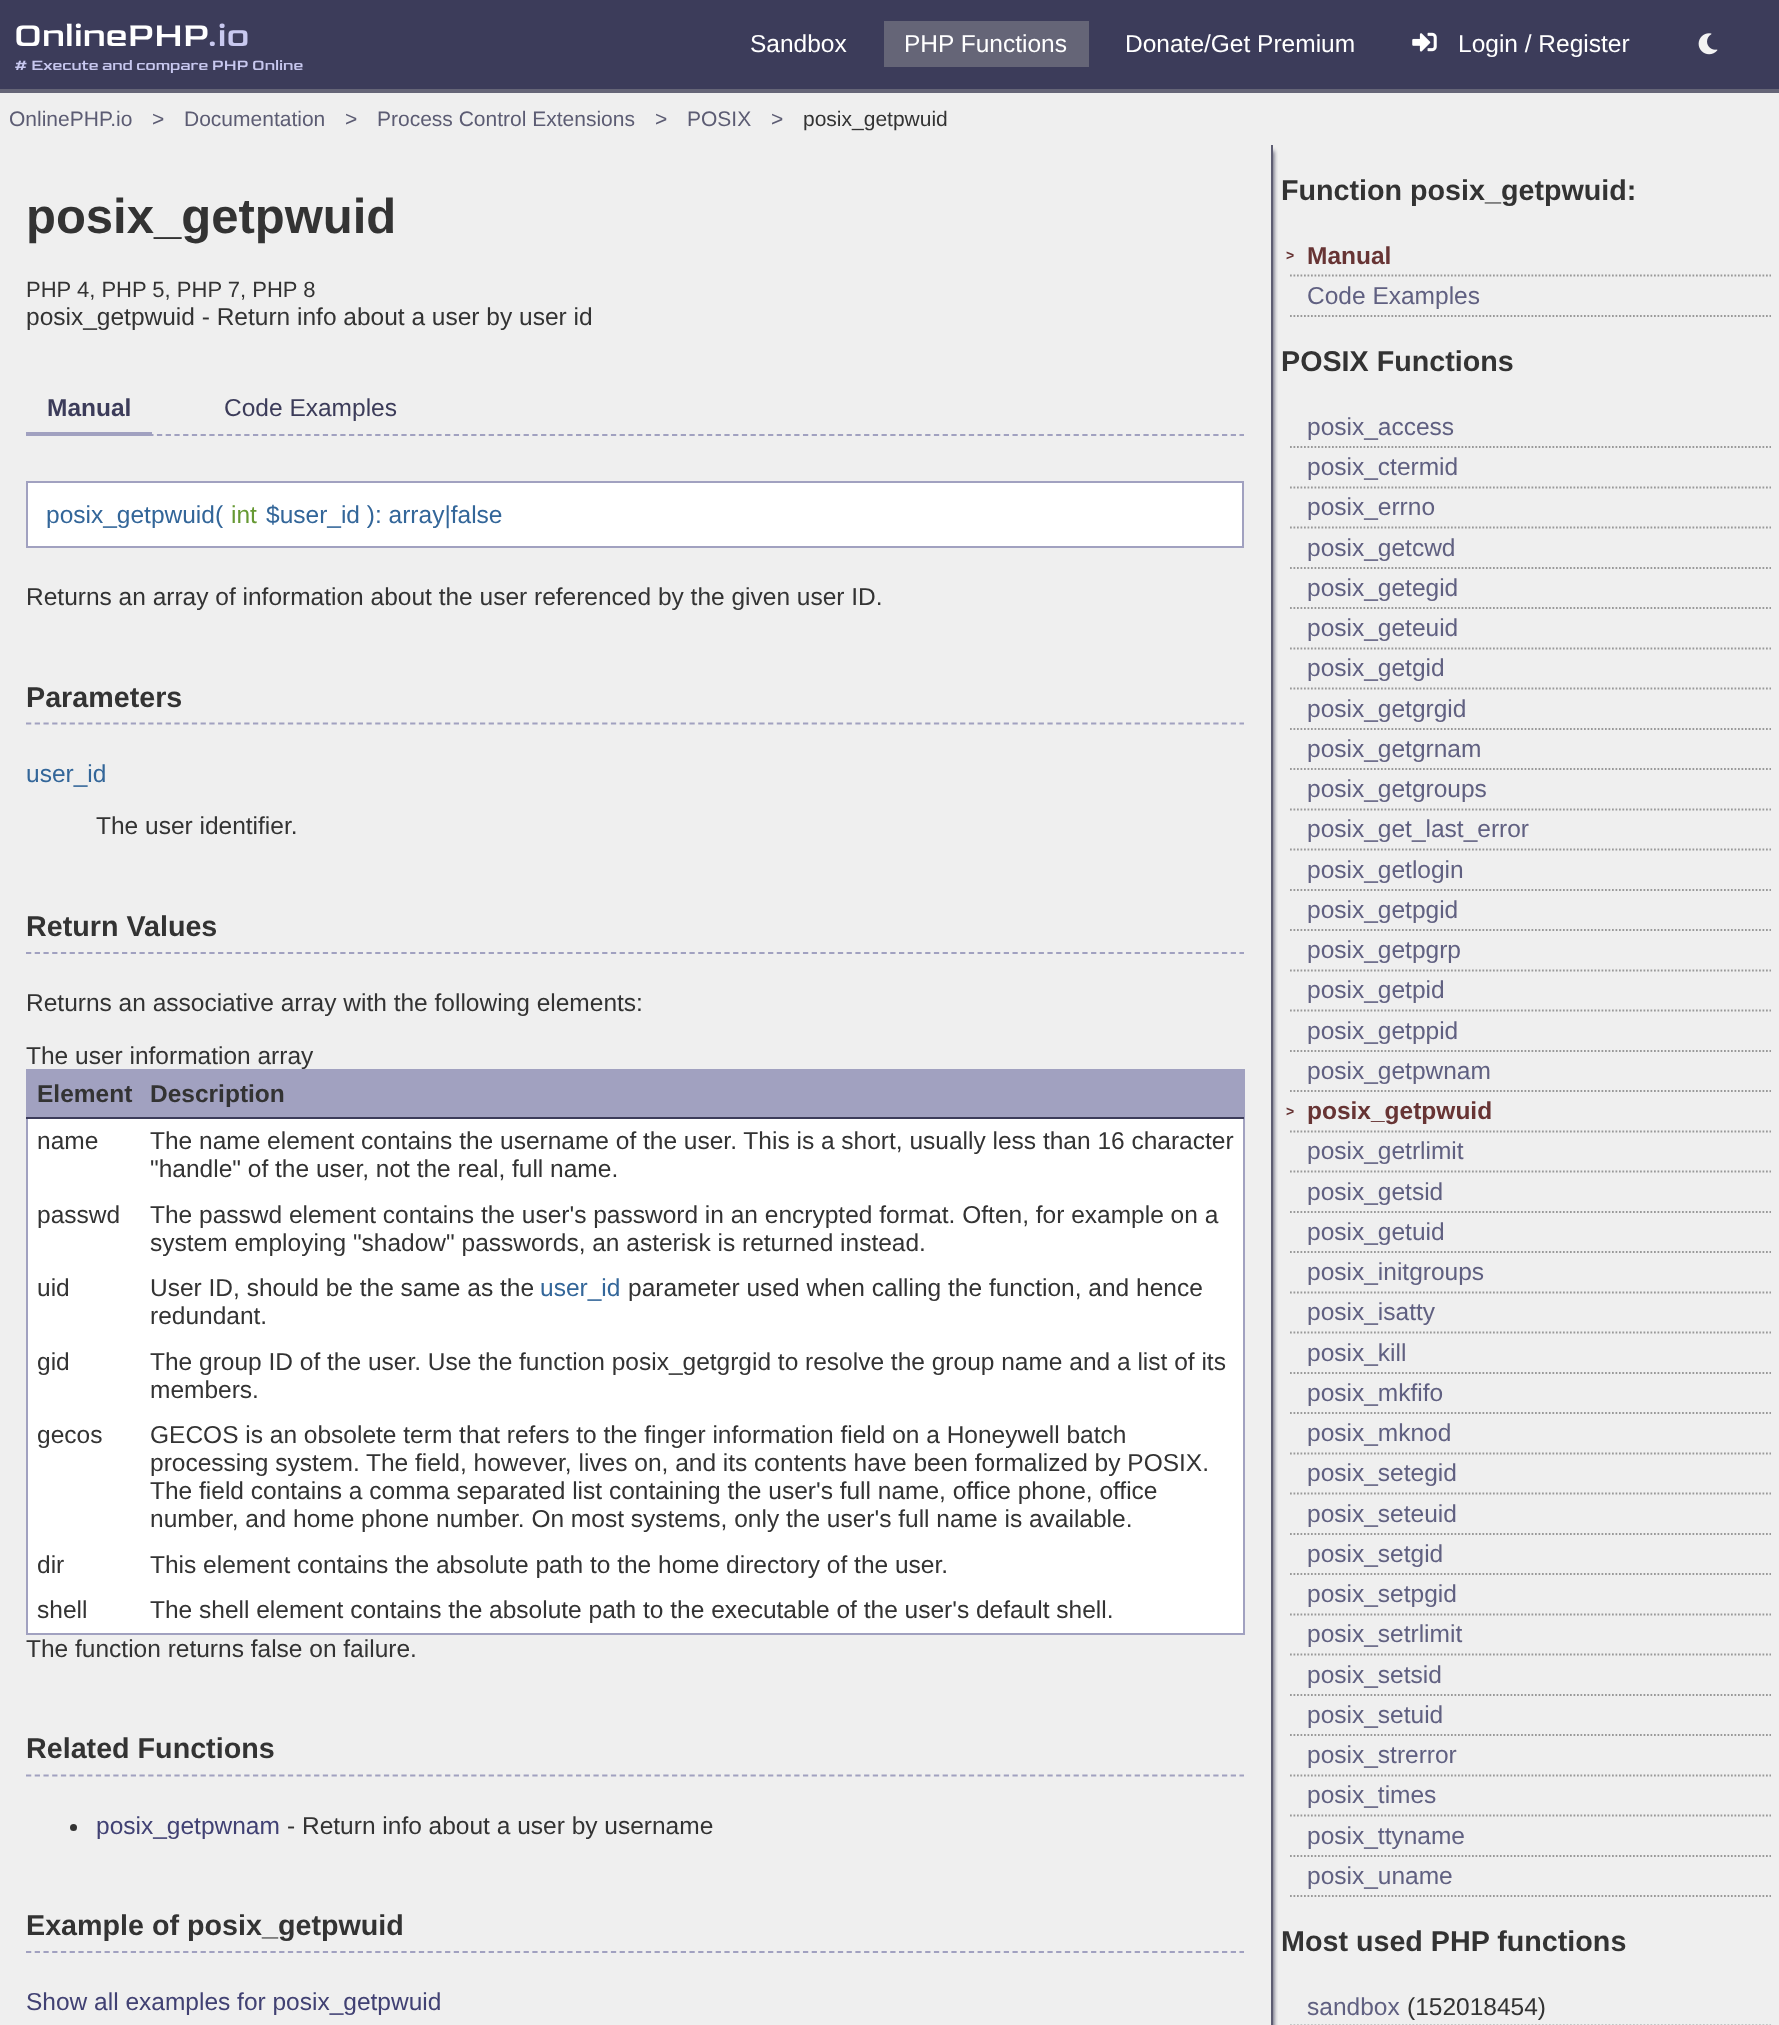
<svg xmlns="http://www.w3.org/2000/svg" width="1779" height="2025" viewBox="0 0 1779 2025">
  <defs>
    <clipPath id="clip1"><rect x="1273" y="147" width="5" height="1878"/></clipPath>
  </defs>
  <rect width="100%" height="100%" fill="rgb(239,239,239)"/>
  <rect x="0" y="0" width="1779" height="89" fill="rgb(60,60,90)"/>
  <rect x="0" y="89" width="1779" height="4" fill="rgb(101,101,119)"/>
  <text x="14" y="46" font-family="Goldman" font-size="35" fill="rgb(255,255,255)">OnlinePHP</text>
  <text x="207" y="46" font-family="Goldman" font-size="35" fill="rgb(200,200,239)">.io</text>
  <text x="14" y="70" font-family="Goldman" font-size="15.75" fill="rgb(200,200,239)"># Execute and compare PHP Online</text>
  <text x="750" y="52" font-family="Liberation Sans" font-size="24.5" fill="rgb(255,255,255)">Sandbox</text>
  <rect x="884" y="21" width="205" height="46" fill="rgb(101,101,119)"/>
  <g font-family="Liberation Sans" font-size="24.5" fill="rgb(255,255,255)">
    <text x="904" y="52">PHP Functions</text>
    <text x="1125" y="52">Donate/Get Premium</text>
  </g>
  <image x="1412" y="32" width="25" height="20" href="pic1.png"/>
  <text x="1458" y="52" font-family="Liberation Sans" font-size="24.5" fill="rgb(255,255,255)">Login / Register</text>
  <image x="1698" y="33" width="20" height="22" href="pic2.png"/>
  <g font-family="Liberation Sans" font-size="21" fill="rgb(92,92,115)">
    <text x="9" y="126">OnlinePHP.io</text>
    <text x="152" y="126">&gt;</text>
    <text x="184" y="126">Documentation</text>
    <text x="345" y="126">&gt;</text>
    <text x="377" y="126">Process Control Extensions</text>
    <text x="655" y="126">&gt;</text>
    <text x="687" y="126">POSIX</text>
    <text x="771" y="126">&gt;</text>
  </g>
  <text x="803" y="126" font-family="Liberation Sans" font-size="21" fill="rgb(51,51,51)">posix_getpwuid</text>
  <g clip-path="url(#clip1)">
    <rect x="12" y="151" width="1262" height="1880" fill="rgb(93,93,114)" filter="blur(2px)"/>
  </g>
  <rect x="1271" y="145" width="2" height="1880" fill="rgb(93,93,114)"/>
  <text x="26" y="233" font-family="Liberation Sans" font-size="49" font-weight="bold" fill="rgb(51,51,51)">posix_getpwuid</text>
  <text x="26" y="297" font-family="Liberation Sans" font-size="22" fill="rgb(51,51,51)">PHP 4, PHP 5, PHP 7, PHP 8</text>
  <text x="26" y="325" font-family="Liberation Sans" font-size="24.5" fill="rgb(51,51,51)">posix_getpwuid - Return info about a user by user id</text>
  <path d="M26 435H1244" fill="none" stroke="rgb(161,161,192)" stroke-width="1.8" stroke-dasharray="5.25 3.48"/>
  <rect x="26" y="432" width="126" height="4" fill="rgb(161,161,192)"/>
  <text x="47" y="416" font-family="Liberation Sans" font-size="24.5" font-weight="bold" fill="rgb(60,60,90)">Manual</text>
  <text x="224" y="416" font-family="Liberation Sans" font-size="24.5" fill="rgb(60,60,90)">Code Examples</text>
  <rect x="27" y="482" width="1216" height="65" fill="rgb(255,255,255)" stroke="rgb(161,161,192)" stroke-width="2"/>
  <text x="46" y="523" font-family="Liberation Sans" font-size="24.5" fill="rgb(51,102,153)">posix_getpwuid(</text>
  <text x="231" y="523" font-family="Liberation Sans" font-size="24.5" fill="rgb(102,153,51)">int</text>
  <text x="266" y="523" font-family="Liberation Sans" font-size="24.5" fill="rgb(51,102,153)">$user_id ): array|false</text>
  <text x="26" y="605" font-family="Liberation Sans" font-size="24.5" fill="rgb(51,51,51)">Returns an array of information about the user referenced by the given user ID.</text>
  <path d="M26 723.5H1244" fill="none" stroke="rgb(161,161,192)" stroke-width="1.8" stroke-dasharray="5.25 3.48"/>
  <text x="26" y="707" font-family="Liberation Sans" font-size="28.7" font-weight="bold" fill="rgb(51,51,51)">Parameters</text>
  <text x="26" y="782" font-family="Liberation Sans" font-size="24.5" fill="rgb(51,102,153)">user_id</text>
  <text x="96" y="834" font-family="Liberation Sans" font-size="24.5" fill="rgb(51,51,51)">The user identifier.</text>
  <path d="M26 953H1244" fill="none" stroke="rgb(161,161,192)" stroke-width="1.8" stroke-dasharray="5.25 3.48"/>
  <text x="26" y="936" font-family="Liberation Sans" font-size="28.7" font-weight="bold" fill="rgb(51,51,51)">Return Values</text>
  <text x="26" y="1011" font-family="Liberation Sans" font-size="24.5" fill="rgb(51,51,51)">Returns an associative array with the following elements:</text>
  <rect x="26" y="1069" width="1218" height="2" fill="rgb(161,161,192)"/>
  <rect x="1243" y="1069" width="2" height="566" fill="rgb(161,161,192)"/>
  <rect x="26" y="1633" width="1218" height="2" fill="rgb(161,161,192)"/>
  <rect x="26" y="1069" width="2" height="566" fill="rgb(161,161,192)"/>
  <text x="26" y="1064" font-family="Liberation Sans" font-size="24.5" fill="rgb(51,51,51)">The user information array</text>
  <rect x="26" y="1117" width="1218" height="2" fill="rgb(60,60,90)"/>
  <rect x="28" y="1071" width="1215" height="46" fill="rgb(161,161,192)"/>
  <g font-family="Liberation Sans" font-size="24.5" font-weight="bold" fill="rgb(51,51,51)">
    <text x="37" y="1102">Element</text>
    <text x="150" y="1102">Description</text>
  </g>
  <rect x="28" y="1119" width="1215" height="73" fill="rgb(255,255,255)"/>
  <g font-family="Liberation Sans" font-size="24.5" fill="rgb(51,51,51)">
    <text x="37" y="1149">name</text>
    <text>
      <tspan x="150" y="1149">The name element contains the username of the user. This is a short, usually less than 16 character</tspan>
      <tspan x="150" y="1177">"handle" of the user, not the real, full name.</tspan>
    </text>
  </g>
  <rect x="28" y="1192" width="1215" height="73" fill="rgb(255,255,255)"/>
  <g font-family="Liberation Sans" font-size="24.5" fill="rgb(51,51,51)">
    <text x="37" y="1223">passwd</text>
    <text>
      <tspan x="150" y="1223">The passwd element contains the user's password in an encrypted format. Often, for example on a</tspan>
      <tspan x="150" y="1251">system employing "shadow" passwords, an asterisk is returned instead.</tspan>
    </text>
  </g>
  <rect x="28" y="1265" width="1215" height="74" fill="rgb(255,255,255)"/>
  <g font-family="Liberation Sans" font-size="24.5" fill="rgb(51,51,51)">
    <text x="37" y="1296">uid</text>
    <text x="150" y="1296">User ID, should be the same as the</text>
  </g>
  <text x="540" y="1296" font-family="Liberation Sans" font-size="24.5" fill="rgb(51,102,153)">user_id</text>
  <g font-family="Liberation Sans" font-size="24.5" fill="rgb(51,51,51)">
    <text x="628" y="1296">parameter used when calling the function, and hence</text>
    <text x="150" y="1324">redundant.</text>
  </g>
  <rect x="28" y="1339" width="1215" height="73" fill="rgb(255,255,255)"/>
  <g font-family="Liberation Sans" font-size="24.5" fill="rgb(51,51,51)">
    <text x="37" y="1370">gid</text>
    <text>
      <tspan x="150" y="1370">The group ID of the user. Use the function posix_getgrgid to resolve the group name and a list of its</tspan>
      <tspan x="150" y="1398">members.</tspan>
    </text>
  </g>
  <rect x="28" y="1412" width="1215" height="130" fill="rgb(255,255,255)"/>
  <g font-family="Liberation Sans" font-size="24.5" fill="rgb(51,51,51)">
    <text x="37" y="1443">gecos</text>
    <text>
      <tspan x="150" y="1443">GECOS is an obsolete term that refers to the finger information field on a Honeywell batch</tspan>
      <tspan x="150" y="1471">processing system.</tspan>
    </text>
    <text x="366" y="1471">The field, however, lives on, and its contents have been formalized by POSIX.</text>
    <text>
      <tspan x="150" y="1499">The field contains a comma separated list containing the user's full name, office phone, office</tspan>
      <tspan x="150" y="1527">number, and home phone number. On most systems, only the user's full name is available.</tspan>
    </text>
  </g>
  <rect x="28" y="1542" width="1215" height="45" fill="rgb(255,255,255)"/>
  <g font-family="Liberation Sans" font-size="24.5" fill="rgb(51,51,51)">
    <text x="37" y="1573">dir</text>
    <text x="150" y="1573">This element contains the absolute path to the home directory of the user.</text>
  </g>
  <rect x="28" y="1587" width="1215" height="46" fill="rgb(255,255,255)"/>
  <g font-family="Liberation Sans" font-size="24.5" fill="rgb(51,51,51)">
    <text x="37" y="1618">shell</text>
    <text x="150" y="1618">The shell element contains the absolute path to the executable of the user's default shell.</text>
    <text x="26" y="1657">The function returns false on failure.</text>
  </g>
  <path d="M26 1775.5H1244" fill="none" stroke="rgb(161,161,192)" stroke-width="1.8" stroke-dasharray="5.25 3.48"/>
  <text x="26" y="1758" font-family="Liberation Sans" font-size="28.7" font-weight="bold" fill="rgb(51,51,51)">Related Functions</text>
  <circle cx="73.5" cy="1827.5" r="3.5" fill="rgb(51,51,51)"/>
  <text x="96" y="1834" font-family="Liberation Sans" font-size="24.5" fill="rgb(65,65,115)">posix_getpwnam</text>
  <text x="287" y="1834" font-family="Liberation Sans" font-size="24.5" fill="rgb(51,51,51)">- Return info about a user by username</text>
  <path d="M26 1952H1244" fill="none" stroke="rgb(161,161,192)" stroke-width="1.8" stroke-dasharray="5.25 3.48"/>
  <text x="26" y="1935" font-family="Liberation Sans" font-size="28.7" font-weight="bold" fill="rgb(51,51,51)">Example of posix_getpwuid</text>
  <text x="26" y="2010" font-family="Liberation Sans" font-size="24.5" fill="rgb(65,65,115)">Show all examples for posix_getpwuid</text>
  <text x="1281" y="200" font-family="Liberation Sans" font-size="28.7" font-weight="bold" fill="rgb(51,51,51)">Function posix_getpwuid:</text>
  <path d="M1290 275.5H1771" fill="none" stroke="rgb(153,153,153)" stroke-width="1.8" stroke-dasharray="1.75 1.75"/>
  <text x="1286" y="260" font-family="Liberation Sans" font-size="14" font-weight="bold" fill="rgb(103,52,52)">&gt;</text>
  <text x="1307" y="264" font-family="Liberation Sans" font-size="24.5" font-weight="bold" fill="rgb(103,52,52)">Manual</text>
  <path d="M1290 316H1771" fill="none" stroke="rgb(153,153,153)" stroke-width="1.8" stroke-dasharray="1.75 1.75"/>
  <text x="1307" y="304" font-family="Liberation Sans" font-size="24.5" fill="rgb(96,96,129)">Code Examples</text>
  <text x="1281" y="371" font-family="Liberation Sans" font-size="28.7" font-weight="bold" fill="rgb(51,51,51)">POSIX Functions</text>
  <path d="M1290 447H1771" fill="none" stroke="rgb(153,153,153)" stroke-width="1.8" stroke-dasharray="1.75 1.75"/>
  <text x="1307" y="435" font-family="Liberation Sans" font-size="24.5" fill="rgb(96,96,129)">posix_access</text>
  <path d="M1290 487.5H1771" fill="none" stroke="rgb(153,153,153)" stroke-width="1.8" stroke-dasharray="1.75 1.75"/>
  <text x="1307" y="475" font-family="Liberation Sans" font-size="24.5" fill="rgb(96,96,129)">posix_ctermid</text>
  <path d="M1290 527.5H1771" fill="none" stroke="rgb(153,153,153)" stroke-width="1.8" stroke-dasharray="1.75 1.75"/>
  <text x="1307" y="515" font-family="Liberation Sans" font-size="24.5" fill="rgb(96,96,129)">posix_errno</text>
  <path d="M1290 568H1771" fill="none" stroke="rgb(153,153,153)" stroke-width="1.8" stroke-dasharray="1.75 1.75"/>
  <text x="1307" y="556" font-family="Liberation Sans" font-size="24.5" fill="rgb(96,96,129)">posix_getcwd</text>
  <path d="M1290 608H1771" fill="none" stroke="rgb(153,153,153)" stroke-width="1.8" stroke-dasharray="1.75 1.75"/>
  <text x="1307" y="596" font-family="Liberation Sans" font-size="24.5" fill="rgb(96,96,129)">posix_getegid</text>
  <path d="M1290 648.5H1771" fill="none" stroke="rgb(153,153,153)" stroke-width="1.8" stroke-dasharray="1.75 1.75"/>
  <text x="1307" y="636" font-family="Liberation Sans" font-size="24.5" fill="rgb(96,96,129)">posix_geteuid</text>
  <path d="M1290 688.5H1771" fill="none" stroke="rgb(153,153,153)" stroke-width="1.8" stroke-dasharray="1.75 1.75"/>
  <text x="1307" y="676" font-family="Liberation Sans" font-size="24.5" fill="rgb(96,96,129)">posix_getgid</text>
  <path d="M1290 729H1771" fill="none" stroke="rgb(153,153,153)" stroke-width="1.8" stroke-dasharray="1.75 1.75"/>
  <text x="1307" y="717" font-family="Liberation Sans" font-size="24.5" fill="rgb(96,96,129)">posix_getgrgid</text>
  <path d="M1290 769H1771" fill="none" stroke="rgb(153,153,153)" stroke-width="1.8" stroke-dasharray="1.75 1.75"/>
  <text x="1307" y="757" font-family="Liberation Sans" font-size="24.5" fill="rgb(96,96,129)">posix_getgrnam</text>
  <path d="M1290 809.5H1771" fill="none" stroke="rgb(153,153,153)" stroke-width="1.8" stroke-dasharray="1.75 1.75"/>
  <text x="1307" y="797" font-family="Liberation Sans" font-size="24.5" fill="rgb(96,96,129)">posix_getgroups</text>
  <path d="M1290 849.5H1771" fill="none" stroke="rgb(153,153,153)" stroke-width="1.8" stroke-dasharray="1.75 1.75"/>
  <text x="1307" y="837" font-family="Liberation Sans" font-size="24.5" fill="rgb(96,96,129)">posix_get_last_error</text>
  <path d="M1290 890H1771" fill="none" stroke="rgb(153,153,153)" stroke-width="1.8" stroke-dasharray="1.75 1.75"/>
  <text x="1307" y="878" font-family="Liberation Sans" font-size="24.5" fill="rgb(96,96,129)">posix_getlogin</text>
  <path d="M1290 930H1771" fill="none" stroke="rgb(153,153,153)" stroke-width="1.8" stroke-dasharray="1.75 1.75"/>
  <text x="1307" y="918" font-family="Liberation Sans" font-size="24.5" fill="rgb(96,96,129)">posix_getpgid</text>
  <path d="M1290 970.5H1771" fill="none" stroke="rgb(153,153,153)" stroke-width="1.8" stroke-dasharray="1.75 1.75"/>
  <text x="1307" y="958" font-family="Liberation Sans" font-size="24.5" fill="rgb(96,96,129)">posix_getpgrp</text>
  <path d="M1290 1010.5H1771" fill="none" stroke="rgb(153,153,153)" stroke-width="1.8" stroke-dasharray="1.75 1.75"/>
  <text x="1307" y="998" font-family="Liberation Sans" font-size="24.5" fill="rgb(96,96,129)">posix_getpid</text>
  <path d="M1290 1051H1771" fill="none" stroke="rgb(153,153,153)" stroke-width="1.8" stroke-dasharray="1.75 1.75"/>
  <text x="1307" y="1039" font-family="Liberation Sans" font-size="24.5" fill="rgb(96,96,129)">posix_getppid</text>
  <path d="M1290 1091H1771" fill="none" stroke="rgb(153,153,153)" stroke-width="1.8" stroke-dasharray="1.75 1.75"/>
  <text x="1307" y="1079" font-family="Liberation Sans" font-size="24.5" fill="rgb(96,96,129)">posix_getpwnam</text>
  <path d="M1290 1131.5H1771" fill="none" stroke="rgb(153,153,153)" stroke-width="1.8" stroke-dasharray="1.75 1.75"/>
  <text x="1286" y="1116" font-family="Liberation Sans" font-size="14" font-weight="bold" fill="rgb(103,52,52)">&gt;</text>
  <text x="1307" y="1119" font-family="Liberation Sans" font-size="24.5" font-weight="bold" fill="rgb(103,52,52)">posix_getpwuid</text>
  <path d="M1290 1171.5H1771" fill="none" stroke="rgb(153,153,153)" stroke-width="1.8" stroke-dasharray="1.75 1.75"/>
  <text x="1307" y="1159" font-family="Liberation Sans" font-size="24.5" fill="rgb(96,96,129)">posix_getrlimit</text>
  <path d="M1290 1212H1771" fill="none" stroke="rgb(153,153,153)" stroke-width="1.8" stroke-dasharray="1.75 1.75"/>
  <text x="1307" y="1200" font-family="Liberation Sans" font-size="24.5" fill="rgb(96,96,129)">posix_getsid</text>
  <path d="M1290 1252H1771" fill="none" stroke="rgb(153,153,153)" stroke-width="1.8" stroke-dasharray="1.75 1.75"/>
  <text x="1307" y="1240" font-family="Liberation Sans" font-size="24.5" fill="rgb(96,96,129)">posix_getuid</text>
  <path d="M1290 1292.5H1771" fill="none" stroke="rgb(153,153,153)" stroke-width="1.8" stroke-dasharray="1.75 1.75"/>
  <text x="1307" y="1280" font-family="Liberation Sans" font-size="24.5" fill="rgb(96,96,129)">posix_initgroups</text>
  <path d="M1290 1332.5H1771" fill="none" stroke="rgb(153,153,153)" stroke-width="1.8" stroke-dasharray="1.75 1.75"/>
  <text x="1307" y="1320" font-family="Liberation Sans" font-size="24.5" fill="rgb(96,96,129)">posix_isatty</text>
  <path d="M1290 1373H1771" fill="none" stroke="rgb(153,153,153)" stroke-width="1.8" stroke-dasharray="1.75 1.75"/>
  <text x="1307" y="1361" font-family="Liberation Sans" font-size="24.5" fill="rgb(96,96,129)">posix_kill</text>
  <path d="M1290 1413H1771" fill="none" stroke="rgb(153,153,153)" stroke-width="1.8" stroke-dasharray="1.75 1.75"/>
  <text x="1307" y="1401" font-family="Liberation Sans" font-size="24.5" fill="rgb(96,96,129)">posix_mkfifo</text>
  <path d="M1290 1453.5H1771" fill="none" stroke="rgb(153,153,153)" stroke-width="1.8" stroke-dasharray="1.75 1.75"/>
  <text x="1307" y="1441" font-family="Liberation Sans" font-size="24.5" fill="rgb(96,96,129)">posix_mknod</text>
  <path d="M1290 1493.5H1771" fill="none" stroke="rgb(153,153,153)" stroke-width="1.8" stroke-dasharray="1.75 1.75"/>
  <text x="1307" y="1481" font-family="Liberation Sans" font-size="24.5" fill="rgb(96,96,129)">posix_setegid</text>
  <path d="M1290 1534H1771" fill="none" stroke="rgb(153,153,153)" stroke-width="1.8" stroke-dasharray="1.75 1.75"/>
  <text x="1307" y="1522" font-family="Liberation Sans" font-size="24.5" fill="rgb(96,96,129)">posix_seteuid</text>
  <path d="M1290 1574H1771" fill="none" stroke="rgb(153,153,153)" stroke-width="1.8" stroke-dasharray="1.75 1.75"/>
  <text x="1307" y="1562" font-family="Liberation Sans" font-size="24.5" fill="rgb(96,96,129)">posix_setgid</text>
  <path d="M1290 1614.5H1771" fill="none" stroke="rgb(153,153,153)" stroke-width="1.8" stroke-dasharray="1.75 1.75"/>
  <text x="1307" y="1602" font-family="Liberation Sans" font-size="24.5" fill="rgb(96,96,129)">posix_setpgid</text>
  <path d="M1290 1654.5H1771" fill="none" stroke="rgb(153,153,153)" stroke-width="1.8" stroke-dasharray="1.75 1.75"/>
  <text x="1307" y="1642" font-family="Liberation Sans" font-size="24.5" fill="rgb(96,96,129)">posix_setrlimit</text>
  <path d="M1290 1695H1771" fill="none" stroke="rgb(153,153,153)" stroke-width="1.8" stroke-dasharray="1.75 1.75"/>
  <text x="1307" y="1683" font-family="Liberation Sans" font-size="24.5" fill="rgb(96,96,129)">posix_setsid</text>
  <path d="M1290 1735H1771" fill="none" stroke="rgb(153,153,153)" stroke-width="1.8" stroke-dasharray="1.75 1.75"/>
  <text x="1307" y="1723" font-family="Liberation Sans" font-size="24.5" fill="rgb(96,96,129)">posix_setuid</text>
  <path d="M1290 1775.5H1771" fill="none" stroke="rgb(153,153,153)" stroke-width="1.8" stroke-dasharray="1.75 1.75"/>
  <text x="1307" y="1763" font-family="Liberation Sans" font-size="24.5" fill="rgb(96,96,129)">posix_strerror</text>
  <path d="M1290 1815.5H1771" fill="none" stroke="rgb(153,153,153)" stroke-width="1.8" stroke-dasharray="1.75 1.75"/>
  <text x="1307" y="1803" font-family="Liberation Sans" font-size="24.5" fill="rgb(96,96,129)">posix_times</text>
  <path d="M1290 1856H1771" fill="none" stroke="rgb(153,153,153)" stroke-width="1.8" stroke-dasharray="1.75 1.75"/>
  <text x="1307" y="1844" font-family="Liberation Sans" font-size="24.5" fill="rgb(96,96,129)">posix_ttyname</text>
  <path d="M1290 1896H1771" fill="none" stroke="rgb(153,153,153)" stroke-width="1.8" stroke-dasharray="1.75 1.75"/>
  <text x="1307" y="1884" font-family="Liberation Sans" font-size="24.5" fill="rgb(96,96,129)">posix_uname</text>
  <text x="1281" y="1951" font-family="Liberation Sans" font-size="28.7" font-weight="bold" fill="rgb(51,51,51)">Most used PHP functions</text>
  <path d="M1290 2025.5H1771" fill="none" stroke="rgb(153,153,153)" stroke-width="1.8" stroke-dasharray="1.75 1.75"/>
  <text x="1307" y="2015" font-family="Liberation Sans" font-size="24.5" fill="rgb(96,96,129)">sandbox</text>
  <text x="1407" y="2015" font-family="Liberation Sans" font-size="24.5" fill="rgb(51,51,51)">(152018454)</text>
</svg>
